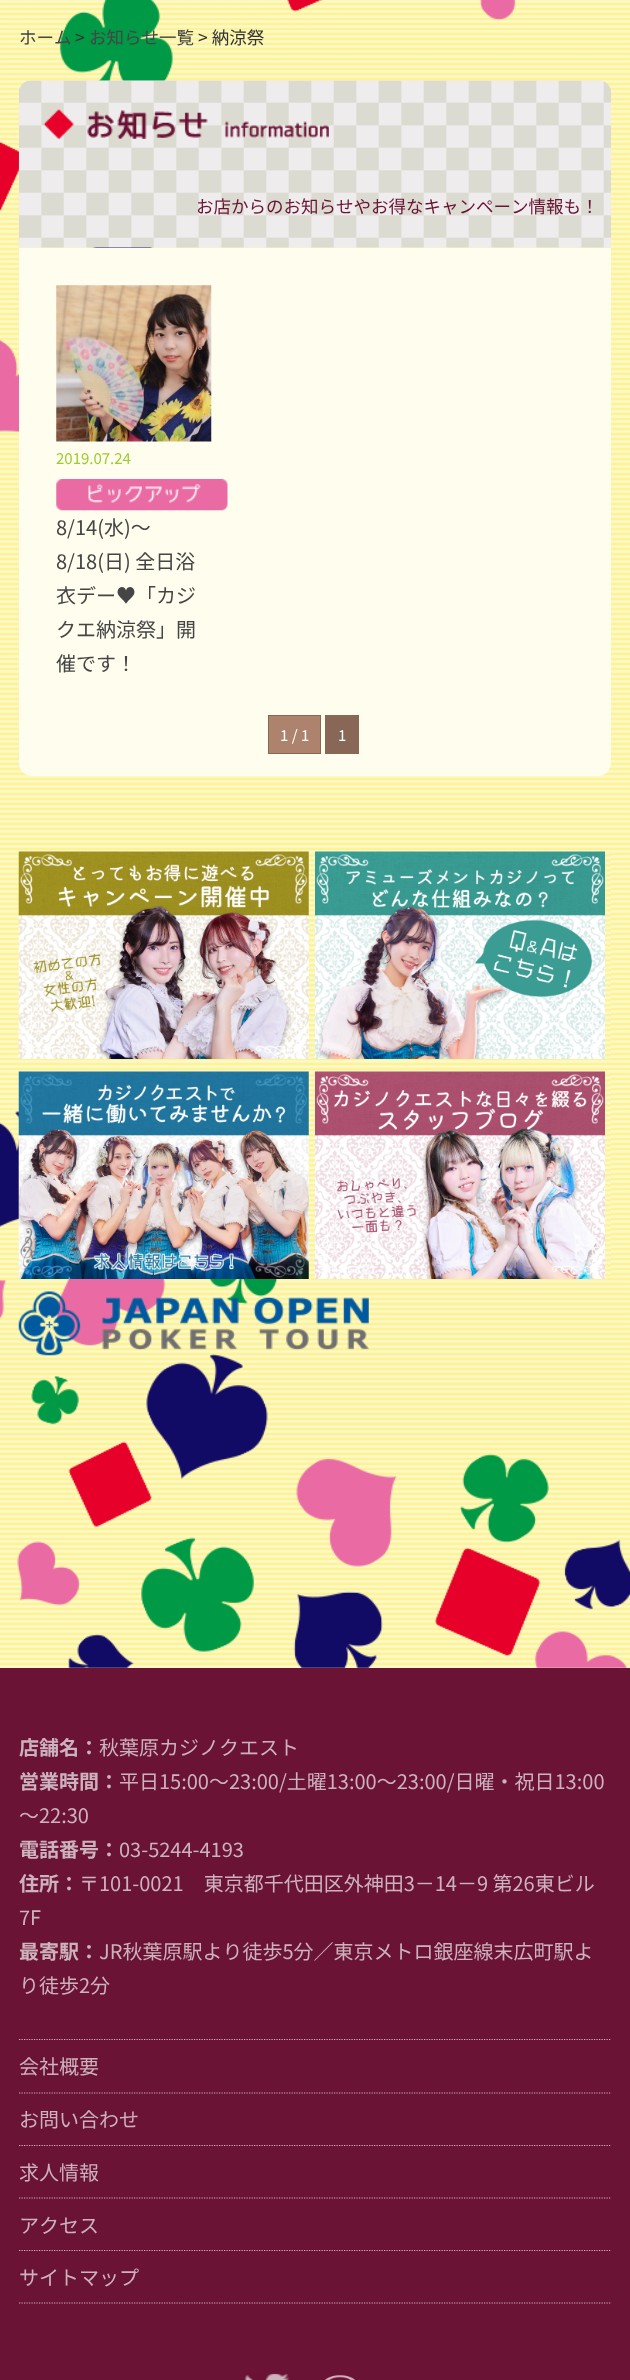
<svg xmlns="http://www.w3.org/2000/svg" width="630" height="2380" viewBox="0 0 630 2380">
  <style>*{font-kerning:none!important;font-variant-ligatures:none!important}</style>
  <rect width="100%" height="100%" fill="rgb(255,255,255)"/>
  <image x="0" y="0" width="630" height="1668" href="pic1.png"/>
  <text x="19" y="44" font-family="Noto Sans JP" font-size="17.5" fill="rgb(69,69,69)">ホーム</text>
  <text x="75" y="44" font-family="Noto Sans JP" font-size="17.5" fill="rgb(51,51,51)">&gt;</text>
  <text x="89" y="44" font-family="Noto Sans JP" font-size="17.5" fill="rgb(69,69,69)">お知らせ一覧</text>
  <text x="198" y="44" font-family="Noto Sans JP" font-size="17.5" fill="rgb(51,51,51)">&gt; 納涼祭</text>
  <image x="18" y="80" width="594" height="168" href="pic2.png"/>
  <image x="43" y="109" width="286" height="30" href="pic3.png"/>
  <text x="196" y="213" font-family="Noto Sans JP" font-size="17.5" fill="rgb(106,19,52)">お店からのお知らせやお得なキャンペーン情報も！</text>
  <path d="M19 248H611V763C611 770 605 776 598 776H32C25 776 19 770 19 763Z" fill="rgb(255,253,238)"/>
  <image x="56" y="285" width="156" height="157" href="pic4.png"/>
  <text x="56" y="464" font-family="Noto Sans JP" font-size="15" fill="rgb(154,205,50)">2019.07.24</text>
  <image x="56" y="479" width="172" height="32" href="pic5.png"/>
  <g font-family="Noto Sans JP" font-size="20" fill="rgb(69,69,69)">
    <text>
      <tspan x="56" y="535">8/14(水)～</tspan>
      <tspan x="56" y="569">8/18(日) 全日浴</tspan>
      <tspan x="56" y="603">衣デー♥「カジ</tspan>
      <tspan x="56" y="637">クエ納涼祭」開</tspan>
      <tspan x="56" y="671">催です！</tspan>
    </text>
  </g>
  <rect x="268.5" y="715.5" width="52" height="38" fill="rgb(173,131,110)" stroke="rgb(136,103,86)"/>
  <text x="280" y="741" font-family="Noto Sans JP" font-size="15" fill="rgb(255,255,255)">1 / 1</text>
  <rect x="325" y="715" width="34" height="39" fill="rgb(136,103,86)"/>
  <text x="338" y="741" font-family="Noto Sans JP" font-size="15" fill="rgb(255,255,255)">1</text>
  <image x="23" y="851" width="292" height="208" href="pic6.png"/>
  <image x="18" y="851" width="291" height="208" href="pic7.png"/>
  <image x="319" y="851" width="292" height="208" href="pic8.png"/>
  <image x="315" y="851" width="290" height="208" href="pic9.png"/>
  <image x="18" y="1071" width="297" height="208" href="pic10.png"/>
  <image x="18" y="1071" width="291" height="208" href="pic11.png"/>
  <image x="319" y="1071" width="292" height="208" href="pic12.png"/>
  <image x="315" y="1071" width="290" height="208" href="pic13.png"/>
  <image x="18" y="1291" width="351" height="65" href="pic14.png"/>
  <rect x="0" y="1668" width="630" height="712" fill="rgb(106,19,52)"/>
  <text x="19" y="1755" font-family="Noto Sans JP" font-size="20" font-weight="bold" fill="rgb(204,178,188)">店舗名：</text>
  <text x="99" y="1755" font-family="Noto Sans JP" font-size="20" fill="rgb(204,178,188)">秋葉原カジノクエスト</text>
  <text x="19" y="1789" font-family="Noto Sans JP" font-size="20" font-weight="bold" fill="rgb(204,178,188)">営業時間：</text>
  <g font-family="Noto Sans JP" font-size="20" fill="rgb(204,178,188)">
    <text x="119" y="1789">平日15:00～23:00/土曜13:00～23:00/日曜・祝日13:00</text>
    <text x="19" y="1823">～22:30</text>
  </g>
  <text x="19" y="1857" font-family="Noto Sans JP" font-size="20" font-weight="bold" fill="rgb(204,178,188)">電話番号：</text>
  <text x="119" y="1857" font-family="Noto Sans JP" font-size="20" fill="rgb(204,178,188)">03-5244-4193</text>
  <text x="19" y="1891" font-family="Noto Sans JP" font-size="20" font-weight="bold" fill="rgb(204,178,188)">住所：</text>
  <g font-family="Noto Sans JP" font-size="20" fill="rgb(204,178,188)">
    <text x="79" y="1891">〒101-0021　東京都千代田区外神田3－14－9 第26東ビル</text>
    <text x="19" y="1925">7F</text>
  </g>
  <text x="19" y="1959" font-family="Noto Sans JP" font-size="20" font-weight="bold" fill="rgb(204,178,188)">最寄駅：</text>
  <g font-family="Noto Sans JP" font-size="20" fill="rgb(204,178,188)">
    <text x="99" y="1959">JR秋葉原駅より徒歩5分／東京メトロ銀座線末広町駅よ</text>
    <text x="19" y="1993">り徒歩2分</text>
  </g>
  <path d="M19 2039.5H611" fill="none" stroke="rgb(204,178,188)" stroke-width="1.2" stroke-dasharray="1.25 1.25"/>
  <path d="M19 2093H611" fill="none" stroke="rgb(204,178,188)" stroke-width="1.2" stroke-dasharray="1.25 1.25"/>
  <text x="19" y="2074" font-family="Noto Sans JP" font-size="20" fill="rgb(204,178,188)">会社概要</text>
  <path d="M19 2145.5H611" fill="none" stroke="rgb(204,178,188)" stroke-width="1.2" stroke-dasharray="1.25 1.25"/>
  <text x="19" y="2127" font-family="Noto Sans JP" font-size="20" fill="rgb(204,178,188)">お問い合わせ</text>
  <path d="M19 2198H611" fill="none" stroke="rgb(204,178,188)" stroke-width="1.2" stroke-dasharray="1.25 1.25"/>
  <text x="19" y="2180" font-family="Noto Sans JP" font-size="20" fill="rgb(204,178,188)">求人情報</text>
  <path d="M19 2250.5H611" fill="none" stroke="rgb(204,178,188)" stroke-width="1.2" stroke-dasharray="1.25 1.25"/>
  <text x="19" y="2233" font-family="Noto Sans JP" font-size="20" fill="rgb(204,178,188)">アクセス</text>
  <path d="M19 2303H611" fill="none" stroke="rgb(204,178,188)" stroke-width="1.2" stroke-dasharray="1.25 1.25"/>
  <text x="19" y="2285" font-family="Noto Sans JP" font-size="20" fill="rgb(204,178,188)">サイトマップ</text>
  <image x="244" y="2373" width="45" height="7" href="pic15.png"/>
  <image x="324" y="2375" width="32" height="5" href="pic16.png"/>
</svg>
